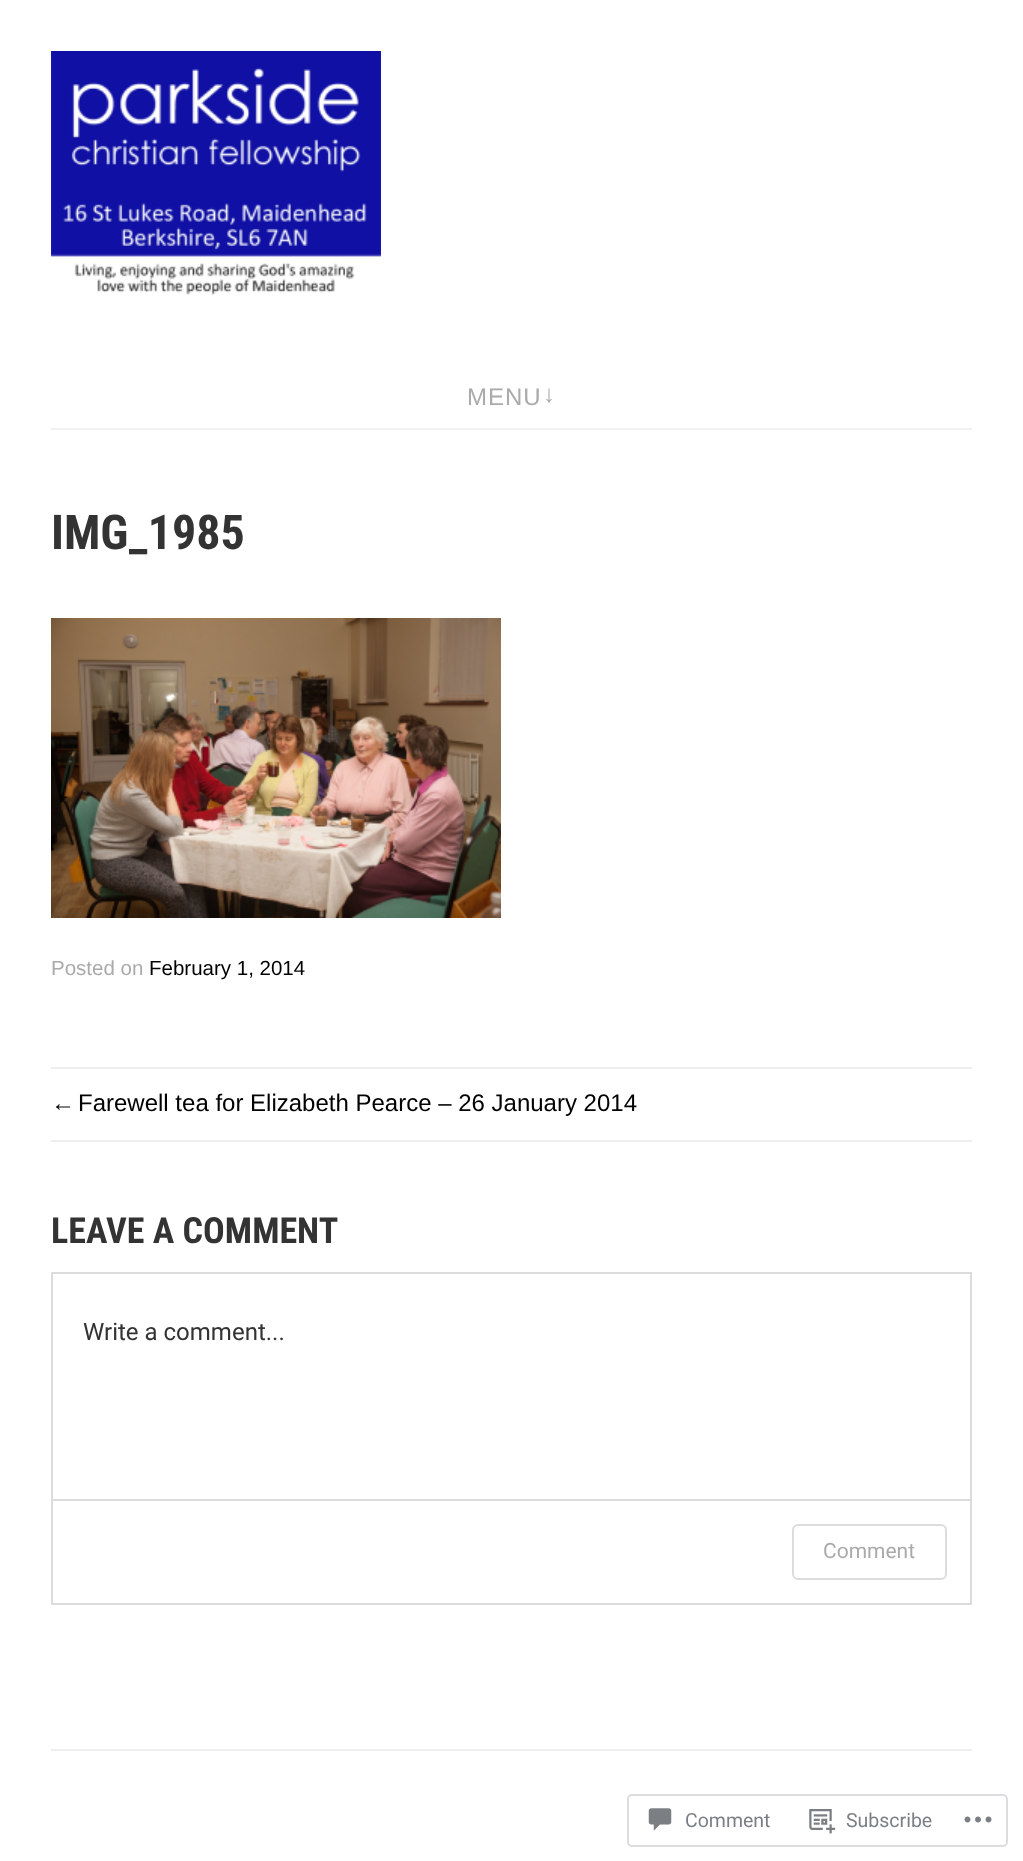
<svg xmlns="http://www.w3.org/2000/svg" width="1023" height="1861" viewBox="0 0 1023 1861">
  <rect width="100%" height="100%" fill="rgb(255,255,255)"/>
  <image x="51" y="51" width="330" height="244" href="pic1.png"/>
  <rect x="51" y="428" width="921" height="2" fill="rgb(240,240,240)"/>
  <g font-family="Arimo" font-size="24" letter-spacing="1" fill="rgb(170,170,170)">
    <text x="467" y="405">MENU</text>
    <text x="543" y="402">↓</text>
  </g>
  <text x="51" y="549" font-family="Roboto Condensed" font-size="48" font-weight="bold" fill="rgb(51,51,51)">IMG_1985</text>
  <image x="51" y="618" width="450" height="300" href="pic2.png"/>
  <text x="51" y="975" font-family="Arimo" font-size="20.5" fill="rgb(170,170,170)">Posted on</text>
  <text x="149" y="975" font-family="Arimo" font-size="20.5" fill="rgb(0,0,0)">February 1, 2014</text>
  <rect x="51" y="1067" width="921" height="2" fill="rgb(238,238,238)"/>
  <rect x="51" y="1140" width="921" height="2" fill="rgb(238,238,238)"/>
  <text x="51" y="1111" font-family="Liberation Sans" font-size="24" fill="rgb(0,0,0)">←</text>
  <text x="78" y="1111" font-family="Arimo" font-size="24" fill="rgb(0,0,0)">Farewell tea for Elizabeth Pearce – 26 January 2014</text>
  <text x="51" y="1243" font-family="Roboto Condensed" font-size="36" font-weight="bold" fill="rgb(51,51,51)">LEAVE A COMMENT</text>
  <rect x="52" y="1273" width="919" height="331" fill="none" stroke="rgb(220,220,222)" stroke-width="2"/>
  <text x="83" y="1340" font-family="Roboto" font-size="24" fill="rgb(51,51,51)">Write a comment...</text>
  <rect x="53" y="1499" width="918" height="2" fill="rgb(220,220,222)"/>
  <rect x="793" y="1525" width="153" height="54" rx="5" fill="none" stroke="rgb(220,220,222)" stroke-width="2"/>
  <text x="823" y="1558" font-family="Roboto" font-size="21" fill="rgb(170,170,170)">Comment</text>
  <rect x="51" y="1749" width="921" height="2" fill="rgb(238,238,238)"/>
  <rect x="628" y="1795" width="379" height="51" rx="4" fill="none" stroke="rgb(221,221,223)" stroke-width="2"/>
  <image x="648" y="1808" width="24" height="23" href="pic3.png"/>
  <text x="685" y="1827" font-family="Roboto" font-size="19.5" fill="rgb(123,127,133)">Comment</text>
  <image x="809" y="1809" width="27" height="25" href="pic4.png"/>
  <text x="846" y="1827" font-family="Roboto" font-size="19.5" fill="rgb(123,127,133)">Subscribe</text>
  <image x="964" y="1816" width="28" height="7" href="pic5.png"/>
</svg>
